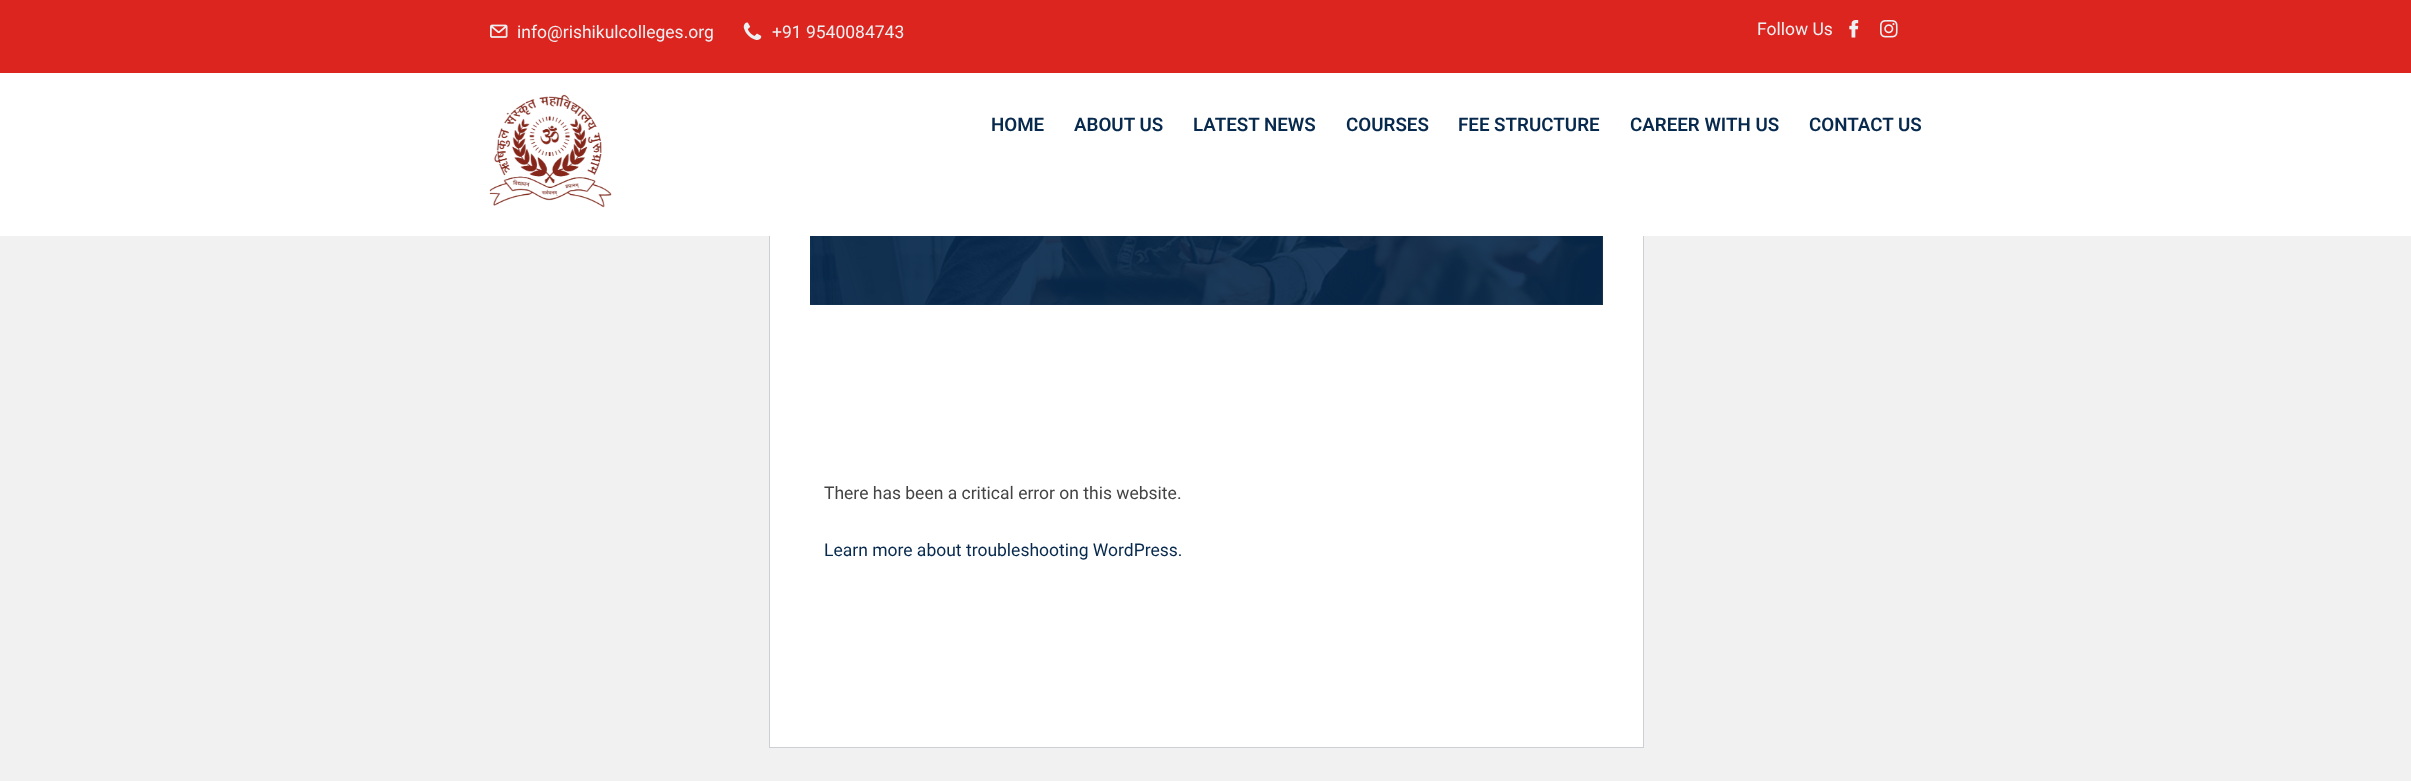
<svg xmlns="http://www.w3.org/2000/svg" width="2411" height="781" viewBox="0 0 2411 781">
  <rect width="100%" height="100%" fill="rgb(241,241,241)"/>
  <rect x="770" y="236" width="873" height="511" fill="rgb(255,255,255)"/>
  <rect x="810" y="236" width="793" height="69" fill="rgb(32,62,95)"/>
  <rect x="769.5" y="-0.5" width="874" height="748" fill="none" stroke="rgb(204,208,212)"/>
  <rect x="0" y="73" width="2411" height="163" fill="rgb(255,255,255)"/>
  <rect x="0" y="0" width="2411" height="73" fill="rgb(221,37,31)"/>
  <image x="490" y="24" width="18" height="14" href="pic1.png"/>
  <text x="517" y="38" font-family="Roboto" font-size="17.5" fill="rgb(237,240,242)">info@rishikulcolleges.org</text>
  <image x="743" y="22" width="19" height="18" href="pic2.png"/>
  <g font-family="Roboto" font-size="17.5" fill="rgb(237,240,242)">
    <text x="772" y="38">+91 9540084743</text>
    <text x="1757" y="35">Follow Us</text>
  </g>
  <image x="1849" y="20" width="10" height="18" href="pic3.png"/>
  <image x="1880" y="20" width="18" height="18" href="pic4.png"/>
  <image x="489" y="94" width="123" height="114" href="pic5.png"/>
  <g font-family="Roboto" font-size="18.75" font-weight="600" fill="rgb(7,41,77)">
    <text x="991" y="131">HOME</text>
    <text x="1074" y="131">ABOUT US</text>
    <text x="1193" y="131">LATEST NEWS</text>
    <text x="1346" y="131">COURSES</text>
    <text x="1458" y="131">FEE STRUCTURE</text>
    <text x="1630" y="131">CAREER WITH US</text>
    <text x="1809" y="131">CONTACT US</text>
  </g>
  <image x="810" y="236" width="793" height="69" href="pic6.png"/>
  <text x="824" y="499" font-family="Roboto" font-size="17.5" fill="rgb(68,68,68)">There has been a critical error on this website.</text>
  <text x="824" y="556" font-family="Roboto" font-size="17.5" fill="rgb(7,41,77)">Learn more about troubleshooting WordPress.</text>
</svg>
